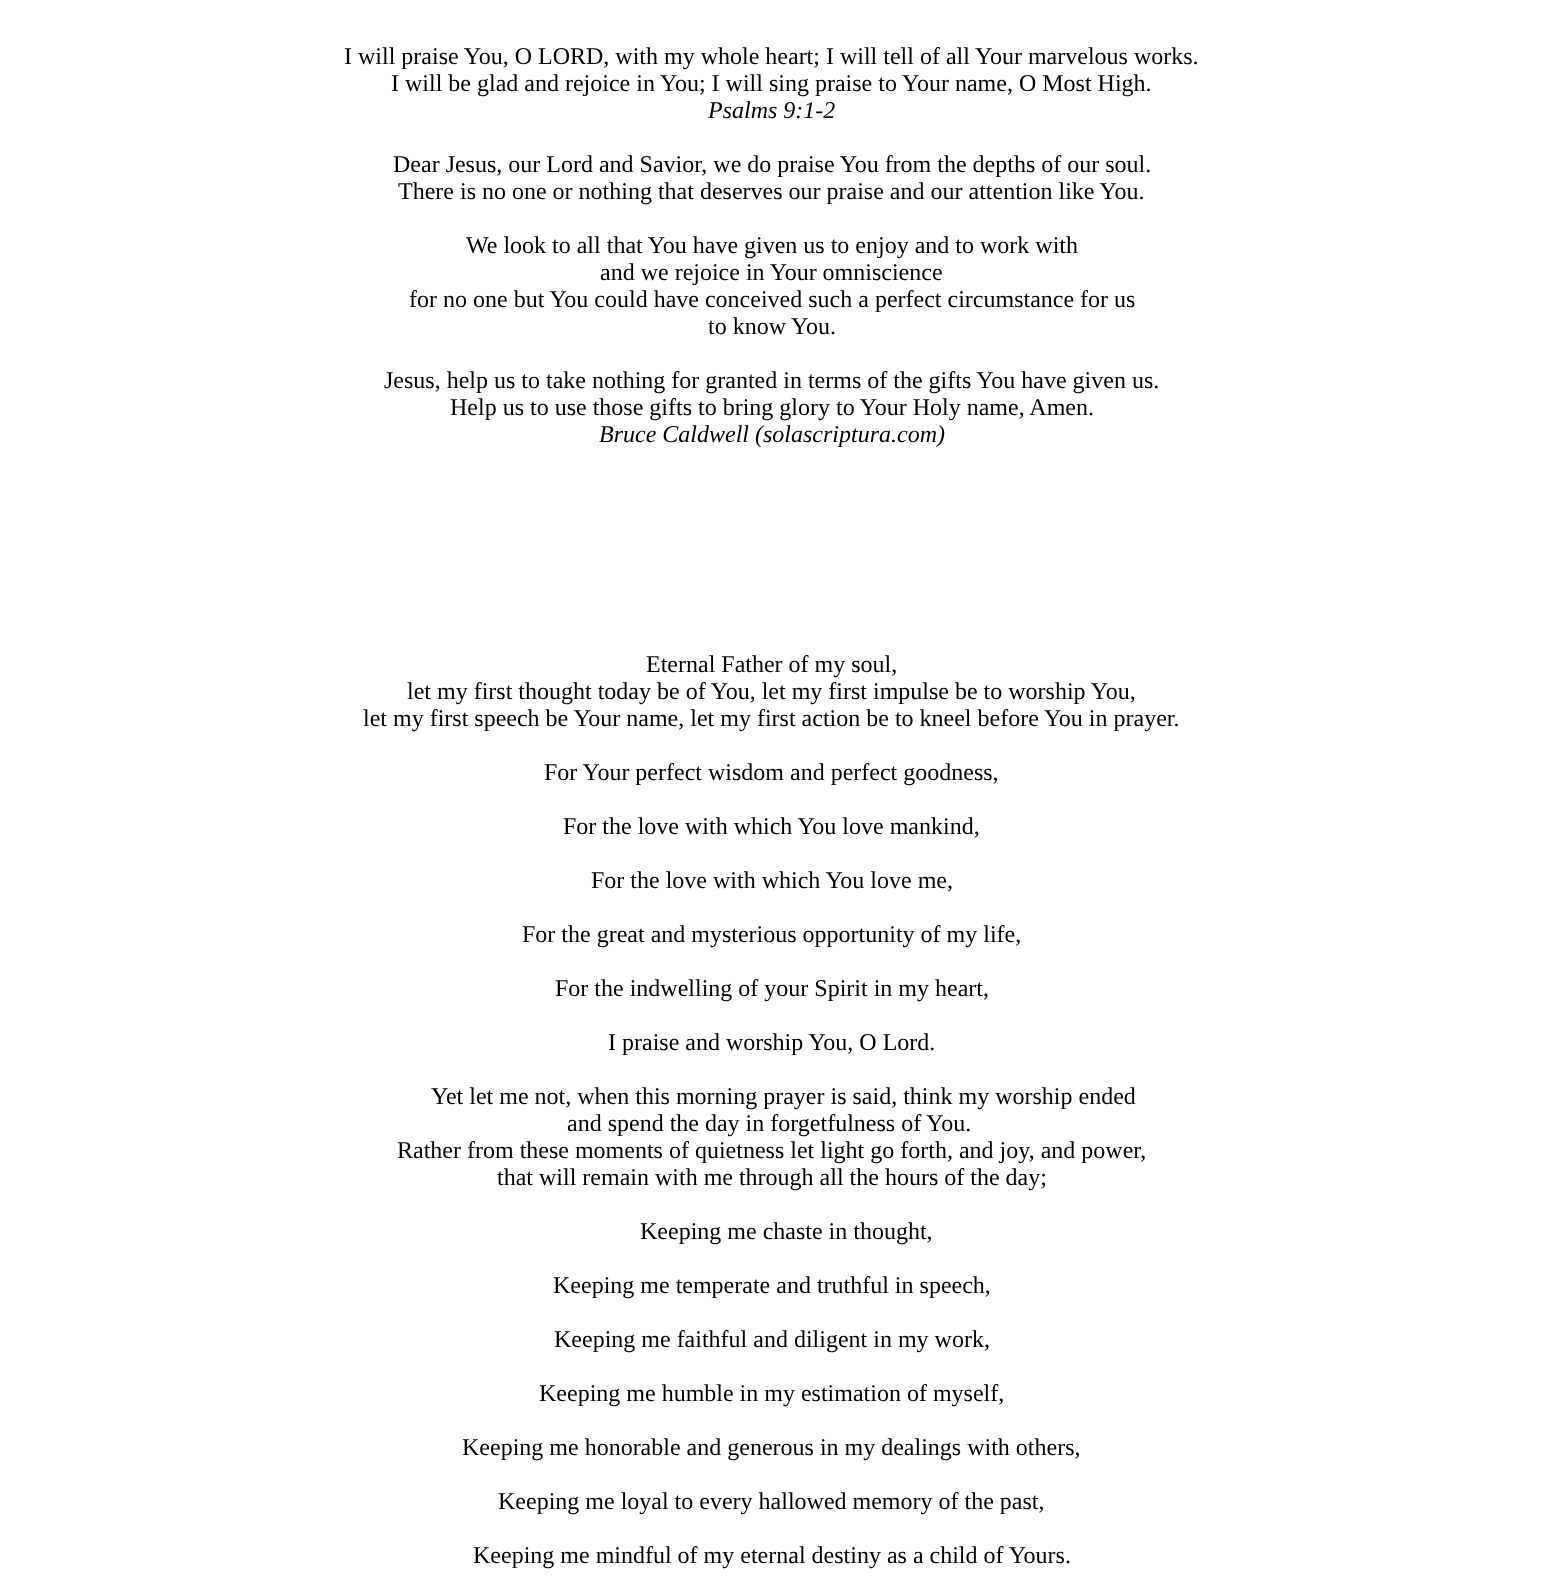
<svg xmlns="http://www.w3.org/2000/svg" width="1543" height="1577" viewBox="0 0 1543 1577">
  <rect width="100%" height="100%" fill="rgb(255,255,255)"/>
  <g font-family="Liberation Serif" font-size="24" fill="rgb(0,0,0)">
    <text x="344" y="64">I will praise You, O LORD, with my whole heart; I will tell of all Your marvelous works.</text>
    <text x="391" y="91">I will be glad and rejoice in You; I will sing praise to Your name, O Most High.</text>
  </g>
  <text x="708" y="118" font-family="Liberation Serif" font-size="24" font-style="italic" fill="rgb(0,0,0)">Psalms 9:1-2</text>
  <g font-family="Liberation Serif" font-size="24" fill="rgb(0,0,0)">
    <text x="393" y="172">Dear Jesus, our Lord and Savior, we do praise You from the depths of our soul.</text>
    <text x="398" y="199">There is no one or nothing that deserves our praise and our attention like You.</text>
    <text x="466" y="253">We look to all that You have given us to enjoy and to work with</text>
    <text x="600" y="280">and we rejoice in Your omniscience</text>
    <text x="409" y="307">for no one but You could have conceived such a perfect circumstance for us</text>
    <text x="708" y="334">to know You.</text>
    <text x="384" y="388">Jesus, help us to take nothing for granted in terms of the gifts You have given us.</text>
    <text x="450" y="415">Help us to use those gifts to bring glory to Your Holy name, Amen.</text>
  </g>
  <text x="599" y="442" font-family="Liberation Serif" font-size="24" font-style="italic" fill="rgb(0,0,0)">Bruce Caldwell (solascriptura.com)</text>
  <g font-family="Liberation Serif" font-size="24" fill="rgb(0,0,0)">
    <text x="646" y="672">Eternal Father of my soul,</text>
    <text x="407" y="699">let my first thought today be of You, let my first impulse be to worship You,</text>
    <text x="363" y="726">let my first speech be Your name, let my first action be to kneel before You in prayer.</text>
    <text x="544" y="780">For Your perfect wisdom and perfect goodness,</text>
    <text x="563" y="834">For the love with which You love mankind,</text>
    <text x="591" y="888">For the love with which You love me,</text>
    <text x="522" y="942">For the great and mysterious opportunity of my life,</text>
    <text x="555" y="996">For the indwelling of your Spirit in my heart,</text>
    <text x="608" y="1050">I praise and worship You, O Lord.</text>
    <text x="431" y="1104">Yet let me not, when this morning prayer is said, think my worship ended</text>
    <text x="567" y="1131">and spend the day in forgetfulness of You.</text>
    <text x="397" y="1158">Rather from these moments of quietness let light go forth, and joy, and power,</text>
    <text x="497" y="1185">that will remain with me through all the hours of the day;</text>
    <text x="640" y="1239">Keeping me chaste in thought,</text>
    <text x="553" y="1293">Keeping me temperate and truthful in speech,</text>
    <text x="554" y="1347">Keeping me faithful and diligent in my work,</text>
    <text x="539" y="1401">Keeping me humble in my estimation of myself,</text>
    <text x="462" y="1455">Keeping me honorable and generous in my dealings with others,</text>
    <text x="498" y="1509">Keeping me loyal to every hallowed memory of the past,</text>
    <text x="473" y="1563">Keeping me mindful of my eternal destiny as a child of Yours.</text>
  </g>
</svg>
